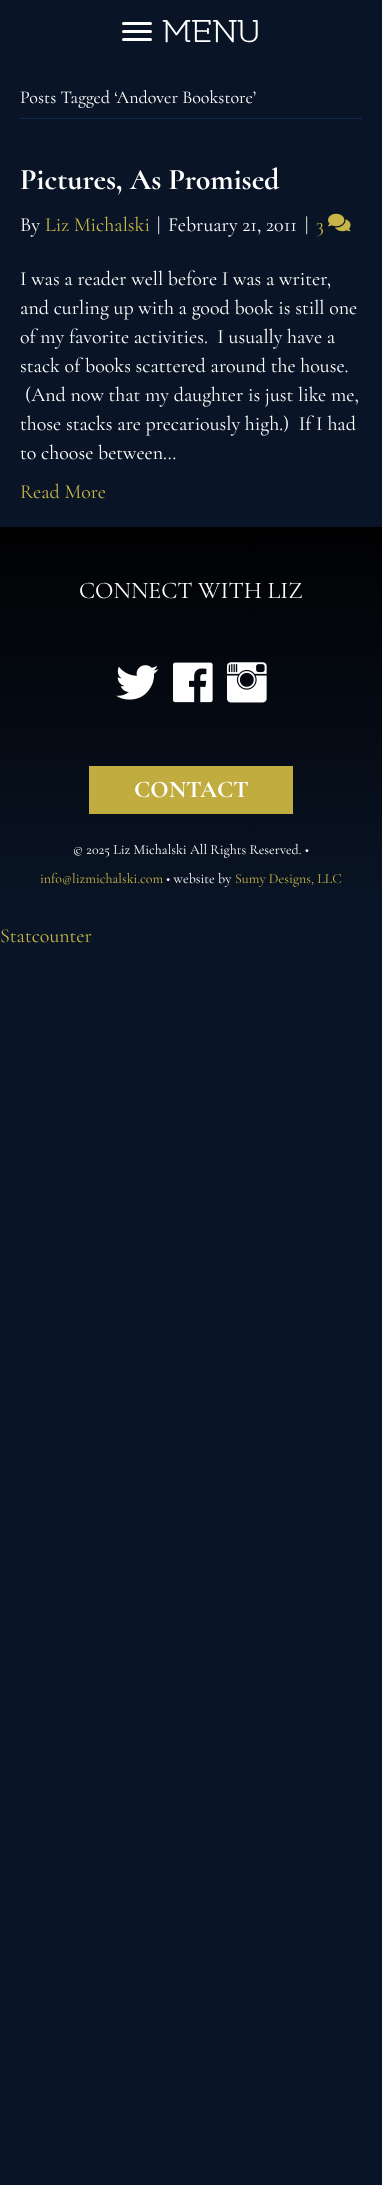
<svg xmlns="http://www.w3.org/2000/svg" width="382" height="2185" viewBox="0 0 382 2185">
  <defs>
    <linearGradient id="g1" gradientUnits="userSpaceOnUse" x1="191" y1="527" x2="191" y2="922"><stop offset="0" stop-color="rgb(1,1,2)"/><stop offset="1" stop-color="rgb(9,21,38)"/></linearGradient>
  </defs>
  <rect width="100%" height="100%" fill="rgb(9,21,38)"/>
  <rect x="122" y="30" width="30" height="3" rx="1.5" fill="rgb(255,255,255)"/>
  <rect x="122" y="22" width="30" height="3" rx="1.5" fill="rgb(255,255,255)"/>
  <rect x="122" y="38" width="30" height="3" rx="1.5" fill="rgb(255,255,255)"/>
  <text x="162" y="42" font-family="Flamenco" font-size="36" fill="rgb(255,255,255)">MENU</text>
  <rect x="20" y="118" width="342" height="1" fill="rgb(18,42,75)"/>
  <text x="20" y="103" font-family="Cormorant" font-size="18" fill="rgb(255,255,255)">Posts Tagged ‘Andover Bookstore’</text>
  <text x="20" y="189" font-family="Cormorant" font-size="30" font-weight="bold" fill="rgb(255,255,255)">Pictures, As Promised</text>
  <text x="20" y="231" font-family="Cormorant Garamond" font-size="20" fill="rgb(255,255,255)">By</text>
  <text x="45" y="231" font-family="Cormorant Garamond" font-size="20" fill="rgb(200,181,72)">Liz Michalski</text>
  <g font-family="Cormorant Garamond" font-size="20" fill="rgb(255,255,255)">
    <text x="157" y="231">|</text>
    <text x="168" y="231">February 21, 2011</text>
    <text x="305" y="231">|</text>
  </g>
  <text x="316" y="231" font-family="Cormorant Garamond" font-size="20" fill="rgb(200,181,72)">3</text>
  <image x="328" y="213" width="23" height="19" href="pic1.png"/>
  <g font-family="Cormorant Garamond" font-size="20" fill="rgb(255,255,255)">
    <text xml:space="preserve"><tspan x="20" y="285">I was a reader well before I was a writer,</tspan><tspan x="20" y="314">and curling up with a good book is still one</tspan><tspan x="20" y="343">of my favorite activities.  I usually have a</tspan><tspan x="20" y="372">stack of books scattered around the house.</tspan></text>
    <text x="25" y="401">(And now that my daughter is just like me,</text>
    <text xml:space="preserve"><tspan x="20" y="430">those stacks are precariously high.)  If I had</tspan><tspan x="20" y="459">to choose between…</tspan></text>
  </g>
  <text x="20" y="498" font-family="Cormorant Garamond" font-size="20" fill="rgb(200,181,72)">Read More</text>
  <rect x="0" y="527" width="382" height="368" fill="url(#g1)"/>
  <text x="79" y="598" font-family="Cormorant" font-size="24" fill="rgb(255,255,255)">CONNECT WITH LIZ</text>
  <image x="116" y="665" width="43" height="35" href="pic2.png"/>
  <image x="173" y="662" width="40" height="41" href="pic3.png"/>
  <image x="227" y="662" width="40" height="41" href="pic4.png"/>
  <rect x="89" y="766" width="204" height="48" fill="rgb(192,172,63)"/>
  <text x="134" y="797" font-family="Cormorant Garamond" font-size="24" font-weight="bold" fill="rgb(255,255,255)">CONTACT</text>
  <text x="73" y="854" font-family="Cormorant Garamond" font-size="14" fill="rgb(255,255,255)">© 2025 Liz Michalski All Rights Reserved. •</text>
  <text x="40" y="883" font-family="Cormorant Garamond" font-size="14" fill="rgb(200,181,72)">info@lizmichalski.com</text>
  <text x="166" y="883" font-family="Cormorant Garamond" font-size="14" fill="rgb(255,255,255)">• website by</text>
  <text x="235" y="883" font-family="Cormorant Garamond" font-size="14" fill="rgb(200,181,72)">Sumy Designs, LLC</text>
  <text x="0" y="942" font-family="Cormorant Garamond" font-size="20" fill="rgb(200,181,72)">Statcounter</text>
</svg>
